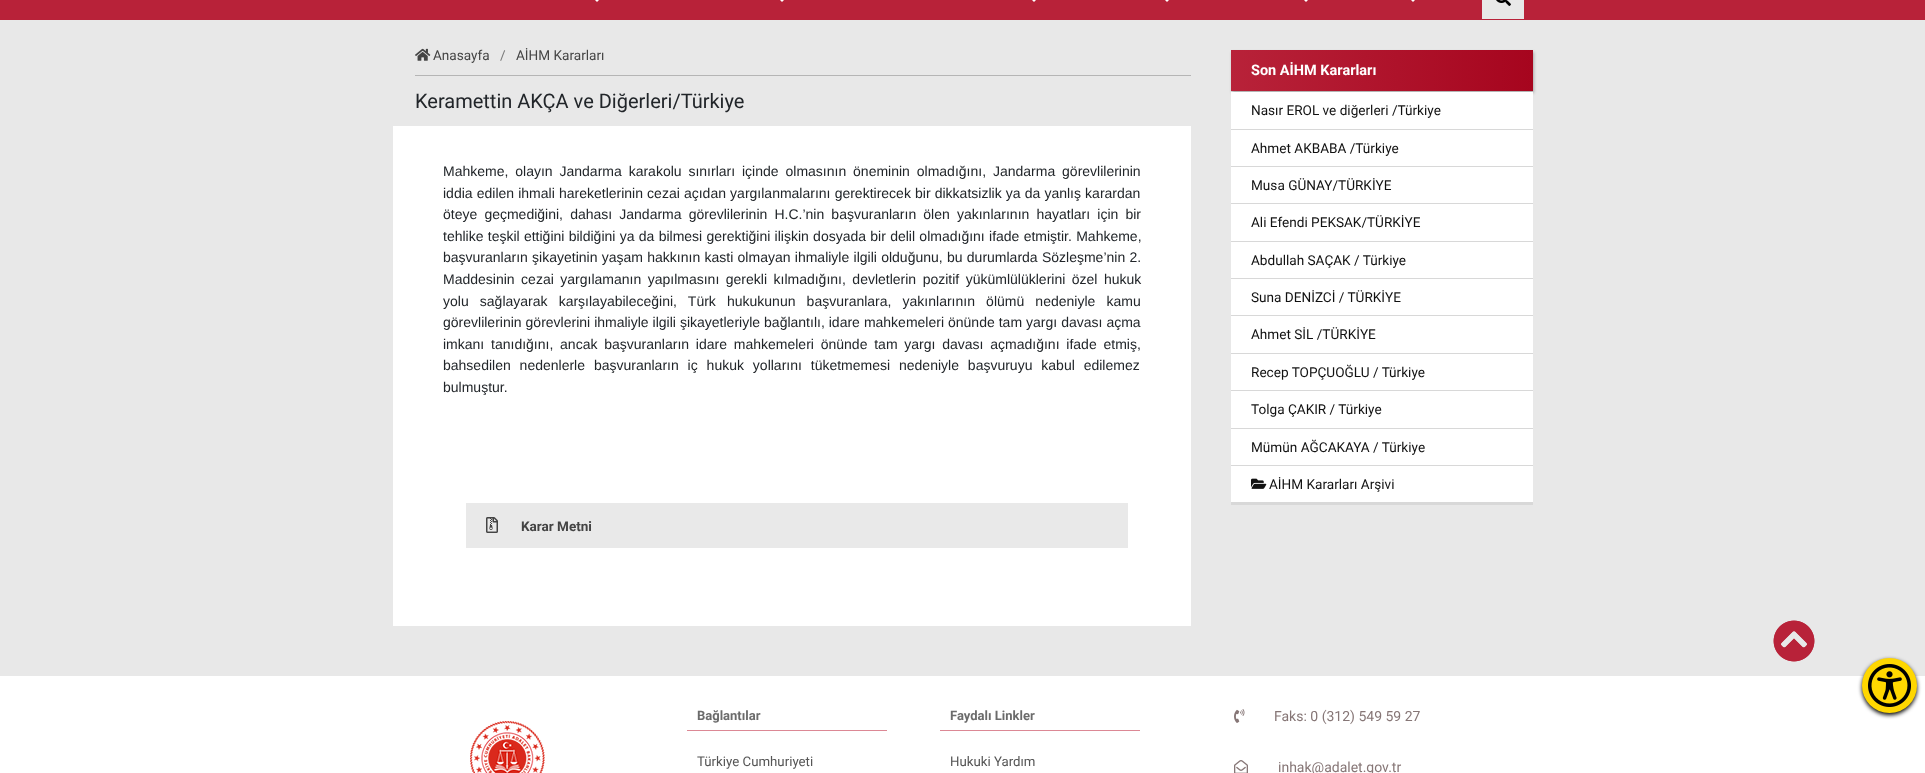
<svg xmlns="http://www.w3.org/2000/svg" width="1925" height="773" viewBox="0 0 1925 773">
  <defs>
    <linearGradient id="g1" gradientUnits="userSpaceOnUse" x1="1231" y1="71" x2="1533" y2="70"><stop offset="0" stop-color="rgb(184,34,57)"/><stop offset="1" stop-color="rgb(166,5,30)"/></linearGradient>
  </defs>
  <rect width="100%" height="100%" fill="rgb(232,232,232)"/>
  <rect x="0" y="0" width="1925" height="20" fill="rgb(184,34,57)"/>
  <path d="M592-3H602L597 2Z" fill="rgb(255,255,255)"/>
  <path d="M777-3H787L782 2Z" fill="rgb(255,255,255)"/>
  <path d="M1029-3H1039L1034 2Z" fill="rgb(255,255,255)"/>
  <path d="M1162-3H1172L1167 2Z" fill="rgb(255,255,255)"/>
  <path d="M1301-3H1311L1306 2Z" fill="rgb(255,255,255)"/>
  <path d="M1408-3H1418L1413 2Z" fill="rgb(255,255,255)"/>
  <rect x="1482" y="0" width="42" height="19" fill="rgb(232,232,232)"/>
  <image x="1496" y="0" width="15" height="6" href="pic1.png"/>
  <rect x="415" y="75" width="776" height="1" fill="rgb(181,181,181)"/>
  <image x="415" y="48" width="16" height="13" href="pic2.png"/>
  <text x="433" y="60" font-family="Roboto" font-size="13.6" fill="rgb(68,68,68)">Anasayfa</text>
  <text x="500" y="60" font-family="Roboto" font-size="13.6" fill="rgb(119,119,119)">/</text>
  <text x="516" y="60" font-family="Roboto" font-size="13.6" fill="rgb(68,68,68)">AİHM Kararları</text>
  <text x="415" y="108" font-family="Roboto" font-size="20" fill="rgb(33,37,41)">Keramettin AKÇA ve Diğerleri/Türkiye</text>
  <rect x="393" y="126" width="798" height="500" fill="rgb(255,255,255)"/>
  <g font-family="Liberation Sans" font-size="14" fill="rgb(33,37,41)">
    <text>
      <tspan x="443" y="176" word-spacing="3">Mahkeme, olayın Jandarma karakolu sınırları içinde olmasının öneminin olmadığını, Jandarma görevlilerinin</tspan>
      <tspan x="443" y="198" word-spacing="0.25">iddia edilen ihmali hareketlerinin cezai açıdan yargılanmalarını gerektirecek bir dikkatsizlik ya da yanlış karardan</tspan>
      <tspan x="443" y="219" word-spacing="3.25">öteye geçmediğini, dahası Jandarma görevlilerinin H.C.’nin başvuranların ölen yakınlarının hayatları için bir</tspan>
      <tspan x="443" y="241" word-spacing="0.4">tehlike teşkil ettiğini bildiğini ya da bilmesi gerektiğini ilişkin dosyada bir delil olmadığını ifade etmiştir. Mahkeme,</tspan>
      <tspan x="443" y="262" word-spacing="0.4">başvuranların şikayetinin yaşam hakkının kasti olmayan ihmaliyle ilgili olduğunu, bu durumlarda Sözleşme’nin 2.</tspan>
      <tspan x="443" y="284" word-spacing="2.6">Maddesinin cezai yargılamanın yapılmasını gerekli kılmadığını, devletlerin pozitif yükümlülüklerini özel hukuk</tspan>
      <tspan x="443" y="306" word-spacing="7.25">yolu sağlayarak karşılayabileceğini, Türk hukukunun başvuranlara, yakınlarının ölümü nedeniyle kamu</tspan>
      <tspan x="443" y="327" word-spacing="0.1">görevlilerinin görevlerini ihmaliyle ilgili şikayetleriyle bağlantılı, idare mahkemeleri önünde tam yargı davası açma</tspan>
      <tspan x="443" y="349" word-spacing="2.9">imkanı tanıdığını, ancak başvuranların idare mahkemeleri önünde tam yargı davası açmadığını ifade etmiş,</tspan>
      <tspan x="443" y="370" word-spacing="5">bahsedilen nedenlerle başvuranların iç hukuk yollarını tüketmemesi nedeniyle başvuruyu kabul edilemez</tspan>
      <tspan x="443" y="392">bulmuştur.</tspan>
    </text>
  </g>
  <rect x="466" y="503" width="662" height="45" fill="rgb(233,233,233)"/>
  <image x="486" y="517" width="12" height="16" href="pic3.png"/>
  <text x="521" y="531" font-family="Roboto" font-size="13.5" font-weight="bold" fill="rgb(68,68,68)">Karar Metni</text>
  <rect x="1232" y="52" width="302" height="41" fill="rgb(170,170,170)" filter="blur(1.5px)"/>
  <rect x="1231" y="50" width="302" height="41" fill="url(#g1)"/>
  <text x="1251" y="75" font-family="Roboto" font-size="14.5" font-weight="bold" fill="rgb(255,255,255)">Son AİHM Kararları</text>
  <rect x="1231" y="95" width="302" height="37" fill="rgb(216,216,216)" filter="blur(0.5px)"/>
  <rect x="1231" y="92" width="302" height="37" fill="rgb(255,255,255)"/>
  <text x="1251" y="115" font-family="Roboto" font-size="13.6" fill="rgb(17,17,17)">Nasır EROL ve diğerleri /Türkiye</text>
  <rect x="1231" y="133" width="302" height="36" fill="rgb(216,216,216)" filter="blur(0.5px)"/>
  <rect x="1231" y="130" width="302" height="36" fill="rgb(255,255,255)"/>
  <text x="1251" y="153" font-family="Roboto" font-size="13.6" fill="rgb(17,17,17)">Ahmet AKBABA /Türkiye</text>
  <rect x="1231" y="170" width="302" height="36" fill="rgb(216,216,216)" filter="blur(0.5px)"/>
  <rect x="1231" y="167" width="302" height="36" fill="rgb(255,255,255)"/>
  <text x="1251" y="190" font-family="Roboto" font-size="13.6" fill="rgb(17,17,17)">Musa GÜNAY/TÜRKİYE</text>
  <rect x="1231" y="207" width="302" height="37" fill="rgb(216,216,216)" filter="blur(0.5px)"/>
  <rect x="1231" y="204" width="302" height="37" fill="rgb(255,255,255)"/>
  <text x="1251" y="227" font-family="Roboto" font-size="13.6" fill="rgb(17,17,17)">Ali Efendi PEKSAK/TÜRKİYE</text>
  <rect x="1231" y="245" width="302" height="36" fill="rgb(216,216,216)" filter="blur(0.5px)"/>
  <rect x="1231" y="242" width="302" height="36" fill="rgb(255,255,255)"/>
  <text x="1251" y="265" font-family="Roboto" font-size="13.6" fill="rgb(17,17,17)">Abdullah SAÇAK / Türkiye</text>
  <rect x="1231" y="282" width="302" height="36" fill="rgb(216,216,216)" filter="blur(0.5px)"/>
  <rect x="1231" y="279" width="302" height="36" fill="rgb(255,255,255)"/>
  <text x="1251" y="302" font-family="Roboto" font-size="13.6" fill="rgb(17,17,17)">Suna DENİZCİ / TÜRKİYE</text>
  <rect x="1231" y="319" width="302" height="37" fill="rgb(216,216,216)" filter="blur(0.5px)"/>
  <rect x="1231" y="316" width="302" height="37" fill="rgb(255,255,255)"/>
  <text x="1251" y="339" font-family="Roboto" font-size="13.6" fill="rgb(17,17,17)">Ahmet SİL /TÜRKİYE</text>
  <rect x="1231" y="357" width="302" height="36" fill="rgb(216,216,216)" filter="blur(0.5px)"/>
  <rect x="1231" y="354" width="302" height="36" fill="rgb(255,255,255)"/>
  <text x="1251" y="377" font-family="Roboto" font-size="13.6" fill="rgb(17,17,17)">Recep TOPÇUOĞLU / Türkiye</text>
  <rect x="1231" y="394" width="302" height="37" fill="rgb(216,216,216)" filter="blur(0.5px)"/>
  <rect x="1231" y="391" width="302" height="37" fill="rgb(255,255,255)"/>
  <text x="1251" y="414" font-family="Roboto" font-size="13.6" fill="rgb(17,17,17)">Tolga ÇAKIR / Türkiye</text>
  <rect x="1231" y="432" width="302" height="36" fill="rgb(216,216,216)" filter="blur(0.5px)"/>
  <rect x="1231" y="429" width="302" height="36" fill="rgb(255,255,255)"/>
  <text x="1251" y="452" font-family="Roboto" font-size="13.6" fill="rgb(17,17,17)">Mümün AĞCAKAYA / Türkiye</text>
  <rect x="1231" y="469" width="302" height="36" fill="rgb(216,216,216)" filter="blur(0.5px)"/>
  <rect x="1231" y="466" width="302" height="36" fill="rgb(255,255,255)"/>
  <image x="1251" y="478" width="16" height="11" href="pic4.png"/>
  <text x="1269" y="489" font-family="Roboto" font-size="13.6" fill="rgb(17,17,17)">AİHM Kararları Arşivi</text>
  <rect x="0" y="676" width="1925" height="97" fill="rgb(255,255,255)"/>
  <image x="470" y="721" width="75" height="52" href="pic5.png"/>
  <image x="1773" y="620" width="42" height="42" href="pic6.png"/>
  <rect x="687" y="730" width="200" height="1" fill="rgb(220,136,149)"/>
  <text x="697" y="720" font-family="Roboto" font-size="13" font-weight="bold" fill="rgb(107,107,107)">Bağlantılar</text>
  <text x="697" y="766" font-family="Roboto" font-size="13.25" fill="rgb(85,85,85)">Türkiye Cumhuriyeti</text>
  <image x="1773" y="620" width="42" height="42" href="pic7.png"/>
  <rect x="940" y="730" width="200" height="1" fill="rgb(220,136,149)"/>
  <text x="950" y="720" font-family="Roboto" font-size="13" font-weight="bold" fill="rgb(107,107,107)">Faydalı Linkler</text>
  <text x="950" y="766" font-family="Roboto" font-size="13.25" fill="rgb(85,85,85)">Hukuki Yardım</text>
  <image x="1234" y="709" width="11" height="14" href="pic8.png"/>
  <text x="1274" y="721" font-family="Roboto" font-size="14" fill="rgb(134,118,118)">Faks: 0 (312) 549 59 27</text>
  <image x="1234" y="760" width="14" height="13" href="pic9.png"/>
  <text x="1278" y="772" font-family="Roboto" font-size="14" fill="rgb(134,118,118)">inhak@adalet.gov.tr</text>
  <rect x="1862" y="660" width="55" height="55" rx="27.5" fill="rgb(0,0,0)" filter="blur(2px)"/>
  <circle cx="1889.5" cy="685.5" r="27.5" fill="rgb(255,215,0)"/>
  <image x="1868" y="664" width="43" height="43" href="pic10.png"/>
</svg>
